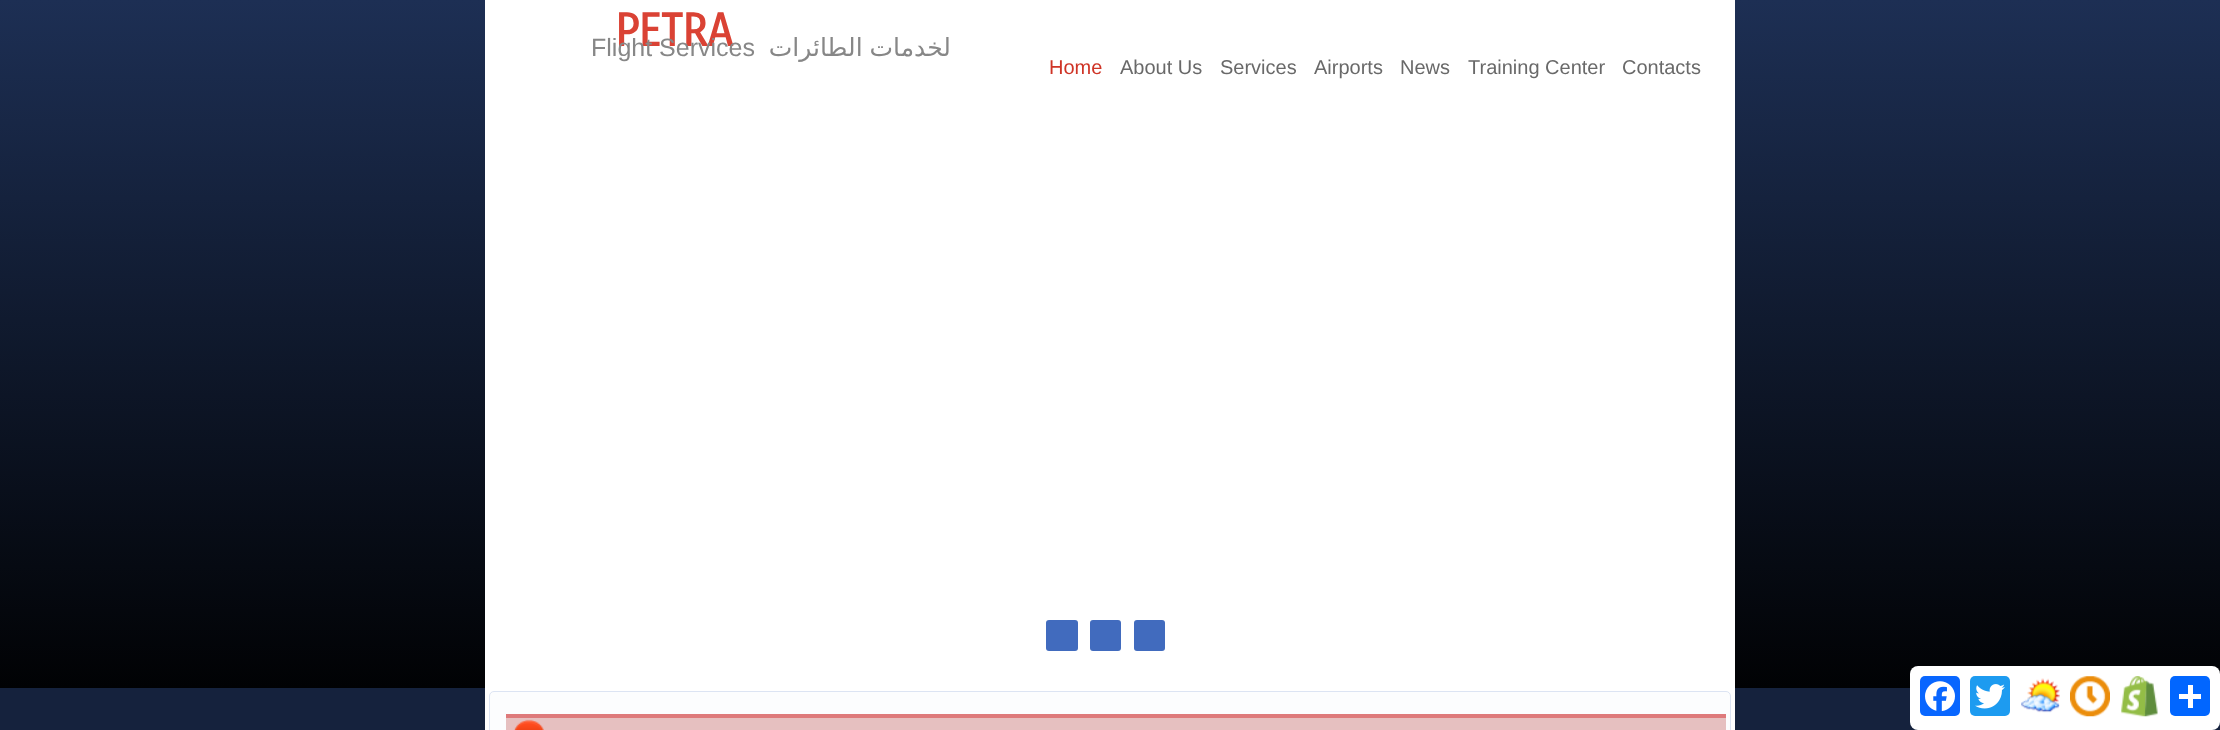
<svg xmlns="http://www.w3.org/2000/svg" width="2220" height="730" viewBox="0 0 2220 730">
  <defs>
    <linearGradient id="g1" gradientUnits="userSpaceOnUse" x1="1110" y1="0" x2="1110" y2="688"><stop offset="0" stop-color="rgb(29,47,84)"/><stop offset="1" stop-color="rgb(1,2,4)"/></linearGradient>
  </defs>
  <rect width="100%" height="100%" fill="rgb(21,34,61)"/>
  <rect x="0" y="0" width="2220" height="688" fill="url(#g1)"/>
  <rect x="485" y="0" width="1250" height="730" fill="rgb(255,255,255)"/>
  <text x="615" y="46" font-family="Carrois Gothic" font-size="45" font-weight="bold" fill="rgb(218,66,52)">PETRA</text>
  <text x="591" y="56" font-family="Liberation Sans" font-size="25" fill="rgb(135,135,135)">Flight Services</text>
  <text x="951" y="56" word-spacing="-1" font-family="DejaVu Sans" font-size="25" direction="rtl" fill="rgb(135,135,135)">لخدمات الطائرات</text>
  <text x="1049" y="74" font-family="Liberation Sans" font-size="20" fill="rgb(207,52,38)">Home</text>
  <g font-family="Liberation Sans" font-size="20" fill="rgb(105,105,105)">
    <text x="1120" y="74">About Us</text>
    <text x="1220" y="74">Services</text>
    <text x="1314" y="74">Airports</text>
    <text x="1400" y="74">News</text>
    <text x="1468" y="74">Training Center</text>
    <text x="1622" y="74">Contacts</text>
  </g>
  <rect x="1046" y="620" width="32" height="31" rx="3" fill="rgb(65,107,190)"/>
  <rect x="1090" y="620" width="31" height="31" rx="3" fill="rgb(65,107,190)"/>
  <rect x="1134" y="620" width="31" height="31" rx="3" fill="rgb(65,107,190)"/>
  <rect x="489.5" y="691.5" width="1241" height="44" rx="4.5" fill="rgb(252,253,254)" stroke="rgb(220,228,243)"/>
  <rect x="506" y="718" width="1220" height="12" fill="rgb(230,192,192)"/>
  <image x="514" y="719" width="30" height="11" href="pic1.png"/>
  <rect x="506" y="714" width="1220" height="4" fill="rgb(222,122,123)"/>
  <rect x="1910" y="666" width="310" height="64" rx="8" fill="rgb(255,255,255)"/>
  <rect x="1920" y="676" width="40" height="40" rx="5" fill="rgb(8,102,255)"/>
  <image x="1925" y="681" width="30" height="31" href="pic2.png"/>
  <rect x="1970" y="676" width="40" height="40" rx="5" fill="rgb(29,155,240)"/>
  <image x="1975" y="684" width="30" height="25" href="pic3.png"/>
  <image x="2021" y="678" width="39" height="35" href="pic4.png"/>
  <image x="2070" y="676" width="40" height="41" href="pic5.png"/>
  <image x="2121" y="676" width="37" height="41" href="pic6.png"/>
  <rect x="2170" y="676" width="40" height="40" rx="5" fill="rgb(1,102,255)"/>
  <rect x="2188" y="685" width="5" height="23" fill="rgb(255,255,255)"/>
  <rect x="2179" y="694" width="22" height="5" fill="rgb(255,255,255)"/>
</svg>
